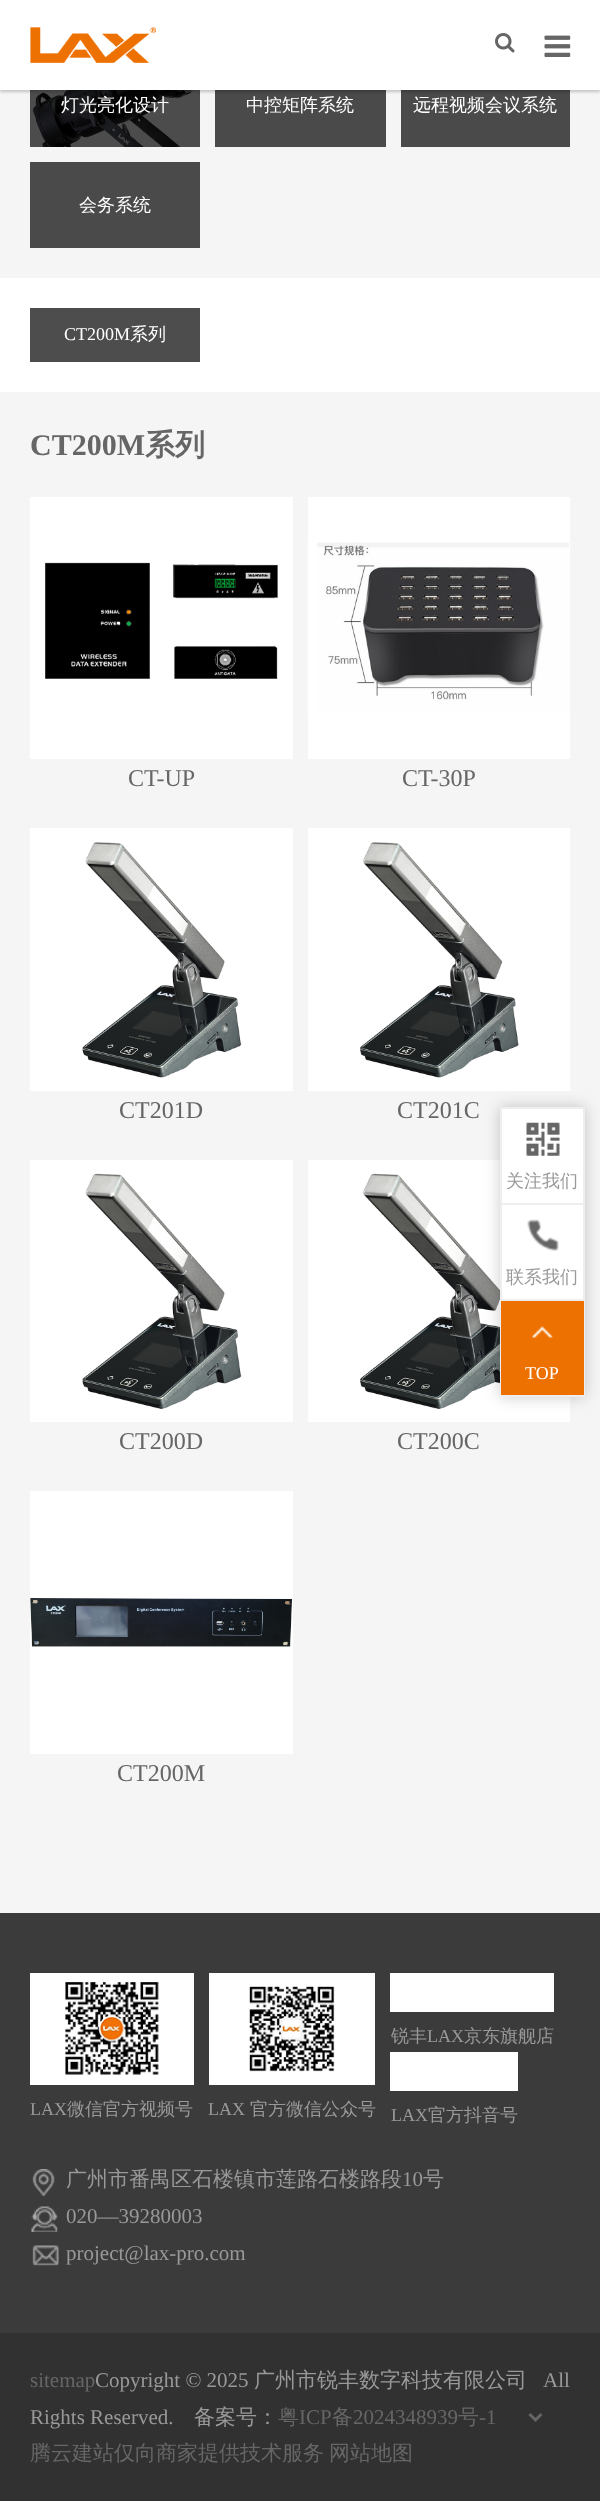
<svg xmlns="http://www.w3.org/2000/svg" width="600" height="2501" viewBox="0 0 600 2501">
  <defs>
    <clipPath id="clip1"><rect x="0" y="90" width="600" height="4"/></clipPath>
  </defs>
  <rect width="100%" height="100%" fill="rgb(245,245,245)"/>
  <rect x="0" y="0" width="600" height="90" fill="rgb(255,255,255)"/>
  <rect x="199" y="90" width="1" height="57" fill="rgb(74,74,74)"/>
  <image x="30" y="90" width="170" height="57" href="pic4.png"/>
  <rect x="215" y="90" width="171" height="57" fill="rgb(74,74,74)"/>
  <rect x="401" y="90" width="169" height="57" fill="rgb(74,74,74)"/>
  <g clip-path="url(#clip1)">
    <rect x="0" y="2" width="600" height="90" fill="rgba(0,0,0,0.2)" filter="blur(1.5px)"/>
  </g>
  <image x="30" y="27" width="126" height="36" href="pic1.png"/>
  <image x="495" y="33" width="20" height="20" href="pic2.png"/>
  <image x="544" y="35" width="27" height="22" href="pic3.png"/>
  <g font-family="WenQuanYi Zen Hei" font-size="18" font-weight="500" fill="rgb(255,255,255)">
    <text x="61" y="111">灯光亮化设计</text>
    <text x="246" y="111">中控矩阵系统</text>
    <text x="413" y="111">远程视频会议系统</text>
  </g>
  <rect x="30" y="162" width="170" height="86" fill="rgb(74,74,74)"/>
  <text x="79" y="211" font-family="WenQuanYi Zen Hei" font-size="18" font-weight="500" fill="rgb(255,255,255)">会务系统</text>
  <rect x="0" y="278" width="600" height="114" fill="rgb(255,255,255)"/>
  <rect x="30" y="308" width="170" height="54" fill="rgb(77,77,77)"/>
  <text x="64" y="340" font-family="Liberation Serif" font-size="18" fill="rgb(255,255,255)">CT200M</text>
  <text x="130" y="340" font-family="WenQuanYi Zen Hei" font-size="18" font-weight="500" fill="rgb(255,255,255)">系列</text>
  <text x="30" y="455" font-family="Liberation Serif" font-size="30" font-weight="bold" fill="rgb(102,102,102)">CT200M</text>
  <text x="145" y="455" font-family="WenQuanYi Zen Hei" font-size="30" font-weight="bold" fill="rgb(102,102,102)">系列</text>
  <rect x="30" y="497" width="263" height="262" fill="rgb(255,255,255)"/>
  <image x="45" y="562" width="233" height="117" href="pic5.png"/>
  <text x="128" y="786" font-family="Liberation Serif" font-size="24" fill="rgb(102,102,102)">CT-UP</text>
  <rect x="308" y="497" width="262" height="262" fill="rgb(255,255,255)"/>
  <image x="307" y="542" width="262" height="171" href="pic6.png"/>
  <text x="402" y="786" font-family="Liberation Serif" font-size="24" fill="rgb(102,102,102)">CT-30P</text>
  <rect x="30" y="828" width="263" height="263" fill="rgb(255,255,255)"/>
  <image x="82" y="842" width="160" height="236" href="pic7.png"/>
  <text x="119" y="1118" font-family="Liberation Serif" font-size="24" fill="rgb(102,102,102)">CT201D</text>
  <rect x="308" y="828" width="262" height="263" fill="rgb(255,255,255)"/>
  <image x="359" y="842" width="160" height="236" href="pic8.png"/>
  <text x="397" y="1118" font-family="Liberation Serif" font-size="24" fill="rgb(102,102,102)">CT201C</text>
  <rect x="30" y="1160" width="263" height="262" fill="rgb(255,255,255)"/>
  <image x="82" y="1173" width="160" height="236" href="pic9.png"/>
  <text x="119" y="1449" font-family="Liberation Serif" font-size="24" fill="rgb(102,102,102)">CT200D</text>
  <rect x="308" y="1160" width="262" height="262" fill="rgb(255,255,255)"/>
  <image x="359" y="1173" width="141" height="236" href="pic10.png"/>
  <text x="397" y="1449" font-family="Liberation Serif" font-size="24" fill="rgb(102,102,102)">CT200C</text>
  <rect x="30" y="1491" width="263" height="263" fill="rgb(255,255,255)"/>
  <image x="30" y="1598" width="262" height="49" href="pic11.png"/>
  <text x="117" y="1781" font-family="Liberation Serif" font-size="24" fill="rgb(102,102,102)">CT200M</text>
  <rect x="500" y="1107" width="85" height="290" fill="rgba(0,0,0,0.2)" filter="blur(7.5px)"/>
  <rect x="502" y="1109" width="81" height="190" fill="rgb(255,255,255)"/>
  <rect x="501" y="1108" width="83" height="288" fill="none" stroke="rgb(238,238,238)" stroke-width="2"/>
  <image x="526" y="1122" width="34" height="34" href="pic12.png"/>
  <text x="506" y="1187" font-family="WenQuanYi Zen Hei" font-size="18" font-weight="500" fill="rgb(153,153,153)">关注我们</text>
  <rect x="501" y="1203" width="83" height="2" fill="rgb(238,238,238)"/>
  <image x="527" y="1219" width="32" height="32" href="pic13.png"/>
  <text x="506" y="1283" font-family="WenQuanYi Zen Hei" font-size="18" font-weight="500" fill="rgb(153,153,153)">联系我们</text>
  <rect x="501" y="1301" width="83" height="94" fill="rgb(237,113,0)"/>
  <rect x="501" y="1299" width="83" height="2" fill="rgb(238,238,238)"/>
  <image x="532" y="1326" width="21" height="12" href="pic14.png"/>
  <text x="525" y="1379" font-family="Liberation Serif" font-size="18" fill="rgb(255,255,255)">TOP</text>
  <rect x="0" y="1913" width="600" height="420" fill="rgb(59,59,59)"/>
  <rect x="390" y="1973" width="164" height="39" fill="rgb(255,255,255)"/>
  <text x="391" y="2042" font-family="WenQuanYi Zen Hei" font-size="18" font-weight="500" fill="rgb(153,153,153)">锐丰</text>
  <text x="427" y="2042" font-family="Liberation Serif" font-size="18" fill="rgb(153,153,153)">LAX</text>
  <text x="464" y="2042" font-family="WenQuanYi Zen Hei" font-size="18" font-weight="500" fill="rgb(153,153,153)">京东旗舰店</text>
  <rect x="30" y="1973" width="164" height="112" fill="rgb(255,255,255)"/>
  <image x="65" y="1982" width="94" height="93" href="pic15.png"/>
  <text x="30" y="2115" font-family="Liberation Serif" font-size="18" fill="rgb(153,153,153)">LAX</text>
  <text x="67" y="2115" font-family="WenQuanYi Zen Hei" font-size="18" font-weight="500" fill="rgb(153,153,153)">微信官方视频号</text>
  <rect x="209" y="1973" width="166" height="112" fill="rgb(255,255,255)"/>
  <image x="249" y="1986" width="86" height="86" href="pic16.png"/>
  <text x="208" y="2115" font-family="Liberation Serif" font-size="18" fill="rgb(153,153,153)">LAX</text>
  <text x="250" y="2115" font-family="WenQuanYi Zen Hei" font-size="18" font-weight="500" fill="rgb(153,153,153)">官方微信公众号</text>
  <rect x="390" y="2052" width="128" height="39" fill="rgb(255,255,255)"/>
  <text x="391" y="2121" font-family="Liberation Serif" font-size="18" fill="rgb(153,153,153)">LAX</text>
  <text x="428" y="2121" font-family="WenQuanYi Zen Hei" font-size="18" font-weight="500" fill="rgb(153,153,153)">官方抖音号</text>
  <image x="32" y="2169" width="23" height="27" href="pic17.png"/>
  <text x="66" y="2186" font-family="WenQuanYi Zen Hei" font-size="21" font-weight="500" fill="rgb(153,153,153)">广州市番禺区石楼镇市莲路石楼路段</text>
  <text x="402" y="2186" font-family="Liberation Serif" font-size="21" fill="rgb(153,153,153)">10</text>
  <text x="423" y="2186" font-family="WenQuanYi Zen Hei" font-size="21" font-weight="500" fill="rgb(153,153,153)">号</text>
  <image x="31" y="2206" width="27" height="26" href="pic18.png"/>
  <text x="66" y="2223" font-family="Liberation Serif" font-size="21" fill="rgb(153,153,153)">020—39280003</text>
  <image x="32" y="2245" width="27" height="21" href="pic19.png"/>
  <text x="66" y="2260" font-family="Liberation Serif" font-size="21" fill="rgb(153,153,153)">project@lax-pro.com</text>
  <rect x="0" y="2333" width="600" height="168" fill="rgb(49,49,49)"/>
  <text x="30" y="2387" font-family="Liberation Serif" font-size="21" fill="rgb(102,102,102)">sitemap</text>
  <text x="95" y="2387" font-family="Liberation Serif" font-size="21" fill="rgb(153,153,153)">Copyright © 2025</text>
  <text x="254" y="2387" font-family="WenQuanYi Zen Hei" font-size="21" font-weight="500" fill="rgb(153,153,153)">广州市锐丰数字科技有限公司</text>
  <g font-family="Liberation Serif" font-size="21" fill="rgb(153,153,153)">
    <text x="543" y="2387">All</text>
    <text x="30" y="2424">Rights Reserved.</text>
  </g>
  <text x="194" y="2424" font-family="WenQuanYi Zen Hei" font-size="21" font-weight="500" fill="rgb(153,153,153)">备案号：</text>
  <text x="278" y="2424" font-family="WenQuanYi Zen Hei" font-size="21" font-weight="500" fill="rgb(102,102,102)">粤</text>
  <text x="299" y="2424" font-family="Liberation Serif" font-size="21" fill="rgb(102,102,102)">ICP</text>
  <text x="332" y="2424" font-family="WenQuanYi Zen Hei" font-size="21" font-weight="500" fill="rgb(102,102,102)">备</text>
  <text x="353" y="2424" font-family="Liberation Serif" font-size="21" fill="rgb(102,102,102)">2024348939</text>
  <text x="458" y="2424" font-family="WenQuanYi Zen Hei" font-size="21" font-weight="500" fill="rgb(102,102,102)">号</text>
  <text x="479" y="2424" font-family="Liberation Serif" font-size="21" fill="rgb(102,102,102)">-1</text>
  <path d="M529.5 2414L535.5 2420L541.5 2414" fill="none" stroke="rgb(102,102,102)" stroke-width="3"/>
  <g font-family="WenQuanYi Zen Hei" font-size="21" font-weight="500" fill="rgb(102,102,102)">
    <text x="30" y="2460">腾云建站仅向商家提供技术服务</text>
    <text x="329" y="2460">网站地图</text>
  </g>
</svg>
